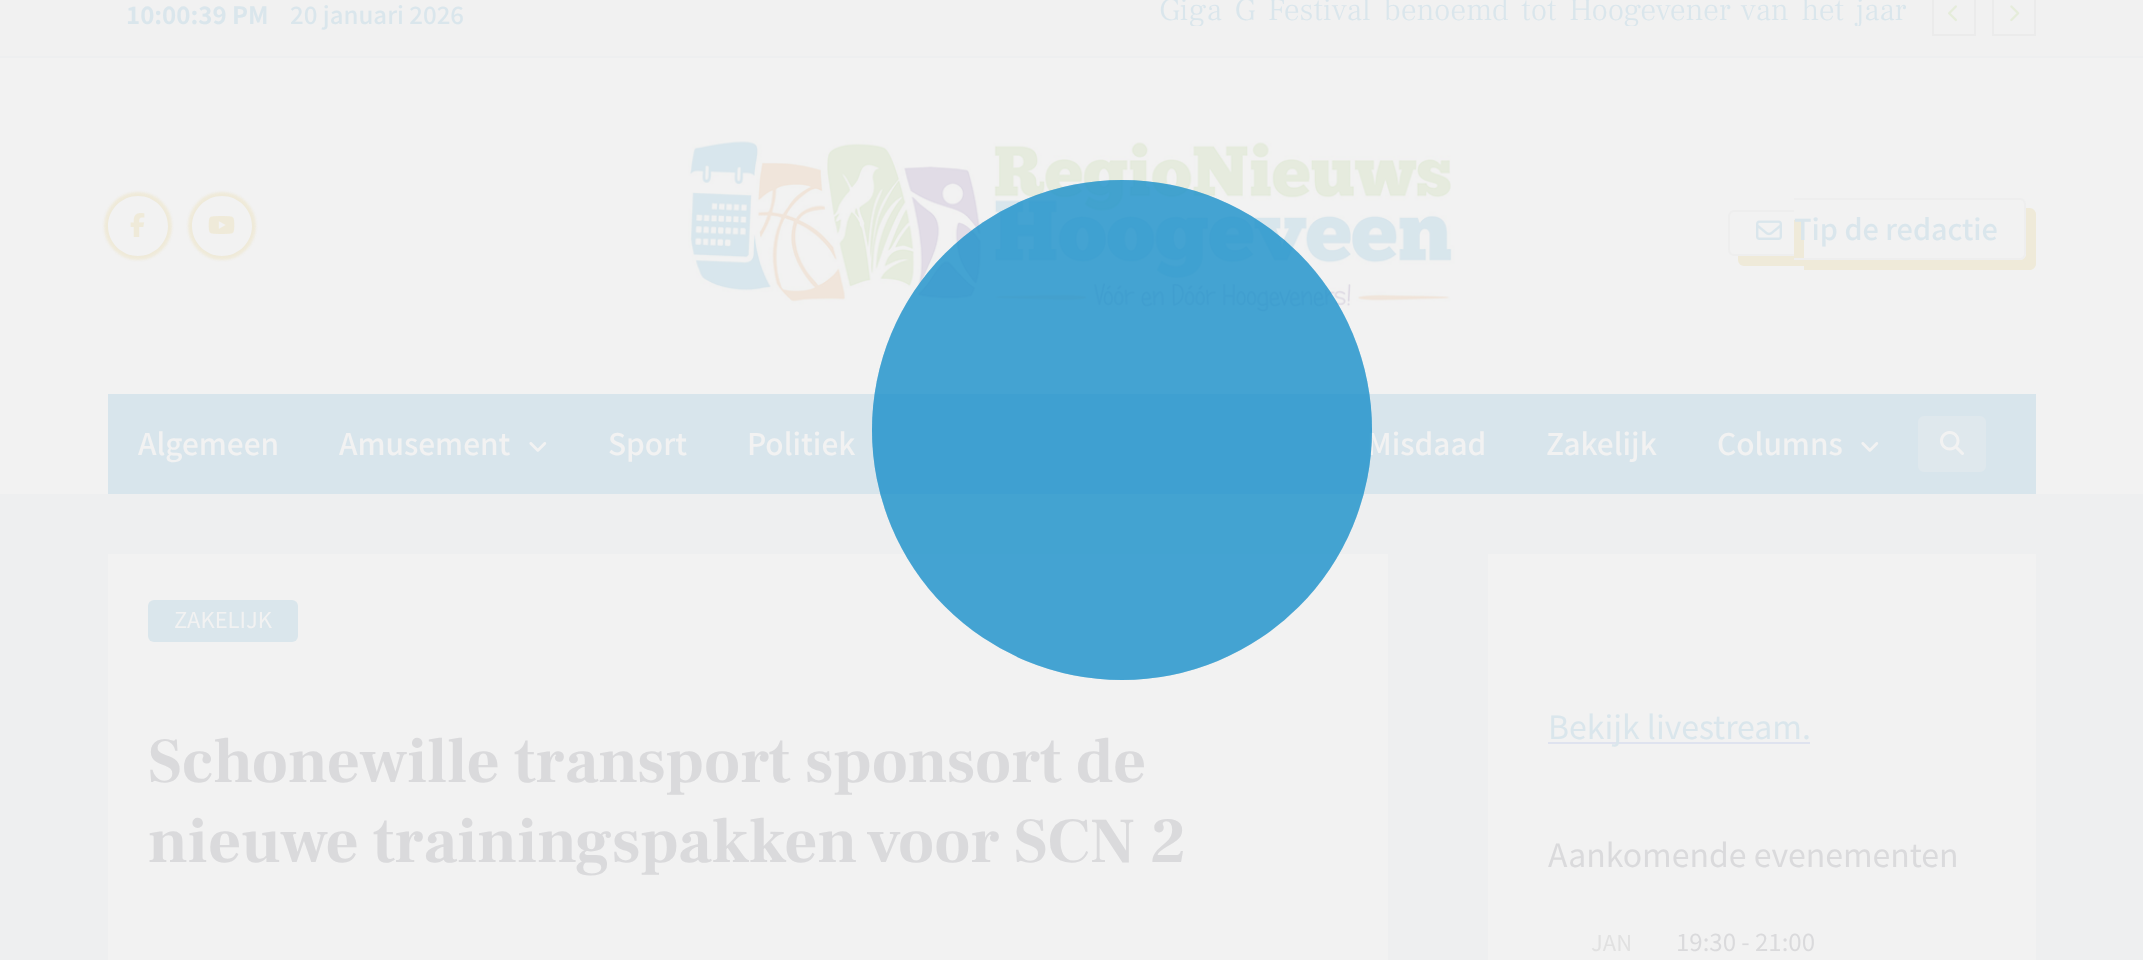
<svg xmlns="http://www.w3.org/2000/svg" width="2143" height="960" viewBox="0 0 2143 960">
  <defs>
    <clipPath id="clip1"><rect x="686" y="0" width="1220" height="26"/></clipPath>
    <clipPath id="clip2"><path d="M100 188H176V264H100ZM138 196C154.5 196 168 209.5 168 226C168 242.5 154.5 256 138 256C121.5 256 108 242.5 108 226C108 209.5 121.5 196 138 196Z" clip-rule="evenodd"/></clipPath>
    <clipPath id="clip3"><path d="M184 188H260V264H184ZM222 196C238.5 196 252 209.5 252 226C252 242.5 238.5 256 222 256C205.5 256 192 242.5 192 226C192 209.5 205.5 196 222 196Z" clip-rule="evenodd"/></clipPath>
  </defs>
  <rect width="100%" height="100%" fill="rgb(238,239,240)"/>
  <rect x="0" y="0" width="2143" height="56" fill="rgb(241,241,241)"/>
  <text x="126" y="24" font-family="Noto Sans JP" font-size="24" font-weight="bold" fill="rgb(218,230,236)">10:00:39 PM</text>
  <text x="290" y="24" font-family="Noto Sans JP" font-size="24" font-weight="500" fill="rgb(218,230,236)">20 januari 2026</text>
  <g clip-path="url(#clip1)">
    <text x="1159" y="20" word-spacing="5" font-family="Frank Ruhl Libre" font-size="31.7" font-weight="300" fill="rgb(218,230,236)">Giga G Festival benoemd tot Hoogevener van het jaar</text>
  </g>
  <rect x="1933" y="-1" width="42" height="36" fill="none" stroke="rgb(235,235,235)" stroke-width="2"/>
  <image x="1948" y="5" width="9" height="17" href="pic1.png"/>
  <rect x="1993" y="-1" width="42" height="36" fill="none" stroke="rgb(235,235,235)" stroke-width="2"/>
  <image x="2010" y="5" width="10" height="17" href="pic2.png"/>
  <rect x="0" y="58" width="2143" height="436" fill="rgb(242,242,242)"/>
  <g clip-path="url(#clip2)">
    <rect x="104" y="192" width="68" height="68" rx="34" fill="rgb(239,234,217)" filter="blur(1px)"/>
  </g>
  <image x="130" y="213" width="15" height="24" href="pic3.png"/>
  <g clip-path="url(#clip3)">
    <rect x="188" y="192" width="68" height="68" rx="34" fill="rgb(239,234,217)" filter="blur(1px)"/>
  </g>
  <image x="208" y="216" width="27" height="18" href="pic4.png"/>
  <image x="688" y="140" width="767" height="172" href="pic5.png"/>
  <path d="M1738 256V260C1738 263 1741 266 1744 266H1804V220H1794V256Z" fill="rgb(239,234,217)"/>
  <path d="M1734 210H1794V256H1734C1731 256 1728 253 1728 250V216C1728 213 1731 210 1734 210ZM1734 212H1794V254H1734C1732 254 1730 252 1730 250V216C1730 214 1732 212 1734 212Z" fill="rgb(238,238,238)" fill-rule="evenodd"/>
  <path d="M1804 260V270H2030C2033 270 2036 267 2036 264V214C2036 211 2033 208 2030 208H2026V254C2026 257 2023 260 2020 260Z" fill="rgb(239,234,217)"/>
  <path d="M1794 198H2020C2023 198 2026 201 2026 204V254C2026 257 2023 260 2020 260H1794ZM1794 200H2020C2022 200 2024 202 2024 204V254C2024 256 2022 258 2020 258H1794Z" fill="rgb(238,238,238)" fill-rule="evenodd"/>
  <image x="1756" y="220" width="26" height="20" href="pic6.png"/>
  <text x="1794" y="240" font-family="Noto Sans JP" font-size="28.75" font-weight="500" fill="rgb(218,230,236)">Tip de redactie</text>
  <rect x="108" y="394" width="1928" height="100" fill="rgb(216,229,236)"/>
  <g font-family="Noto Sans JP" font-size="29.75" font-weight="500" fill="rgb(242,242,242)">
    <text x="138" y="455">Algemeen</text>
    <text x="339" y="455">Amusement</text>
  </g>
  <image x="529" y="442" width="18" height="10" href="pic7.png"/>
  <g font-family="Noto Sans JP" font-size="29.75" font-weight="500" fill="rgb(242,242,242)">
    <text x="608" y="455">Sport</text>
    <text x="747" y="455">Politiek</text>
    <text x="1367" y="455">Misdaad</text>
    <text x="1546" y="455">Zakelijk</text>
    <text x="1717" y="455">Columns</text>
  </g>
  <image x="1861" y="442" width="18" height="10" href="pic7.png"/>
  <rect x="1918" y="416" width="68" height="56" rx="6" fill="rgb(223,232,237)"/>
  <image x="1940" y="431" width="24" height="24" href="pic8.png"/>
  <rect x="108" y="554" width="1280" height="406" fill="rgb(242,242,242)"/>
  <circle cx="1122" cy="430" r="250" fill="rgba(22,143,202,0.54)"/>
  <circle cx="1122" cy="430" r="250" fill="rgba(22,143,202,0.54)"/>
  <rect x="148" y="600" width="150" height="42" rx="6" fill="rgb(218,230,236)"/>
  <text x="174" y="628" font-family="Noto Sans JP" font-size="22" fill="rgb(242,242,242)">ZAKELIJK</text>
  <g font-family="Frank Ruhl Libre" font-size="64" font-weight="bold" fill="rgb(218,218,220)">
    <text>
      <tspan x="148" y="782">Schonewille transport sponsort de</tspan>
      <tspan x="148" y="862">nieuwe trainingspakken voor SCN 2</tspan>
    </text>
  </g>
  <rect x="1488" y="554" width="548" height="406" fill="rgb(242,242,242)"/>
  <rect x="1548" y="742" width="262" height="2" fill="rgb(223,227,239)"/>
  <text x="1548" y="739" font-family="Noto Sans JP" font-size="32" fill="rgb(218,230,236)">Bekijk livestream.</text>
  <text x="1548" y="867" font-family="Noto Sans JP" font-size="32" fill="rgb(218,218,220)">Aankomende evenementen</text>
  <text x="1591" y="951" font-family="Noto Sans JP" font-size="22" fill="rgb(225,225,225)">JAN</text>
  <text x="1676" y="951" font-family="Noto Sans JP" font-size="24" fill="rgb(218,218,220)">19:30 - 21:00</text>
</svg>
